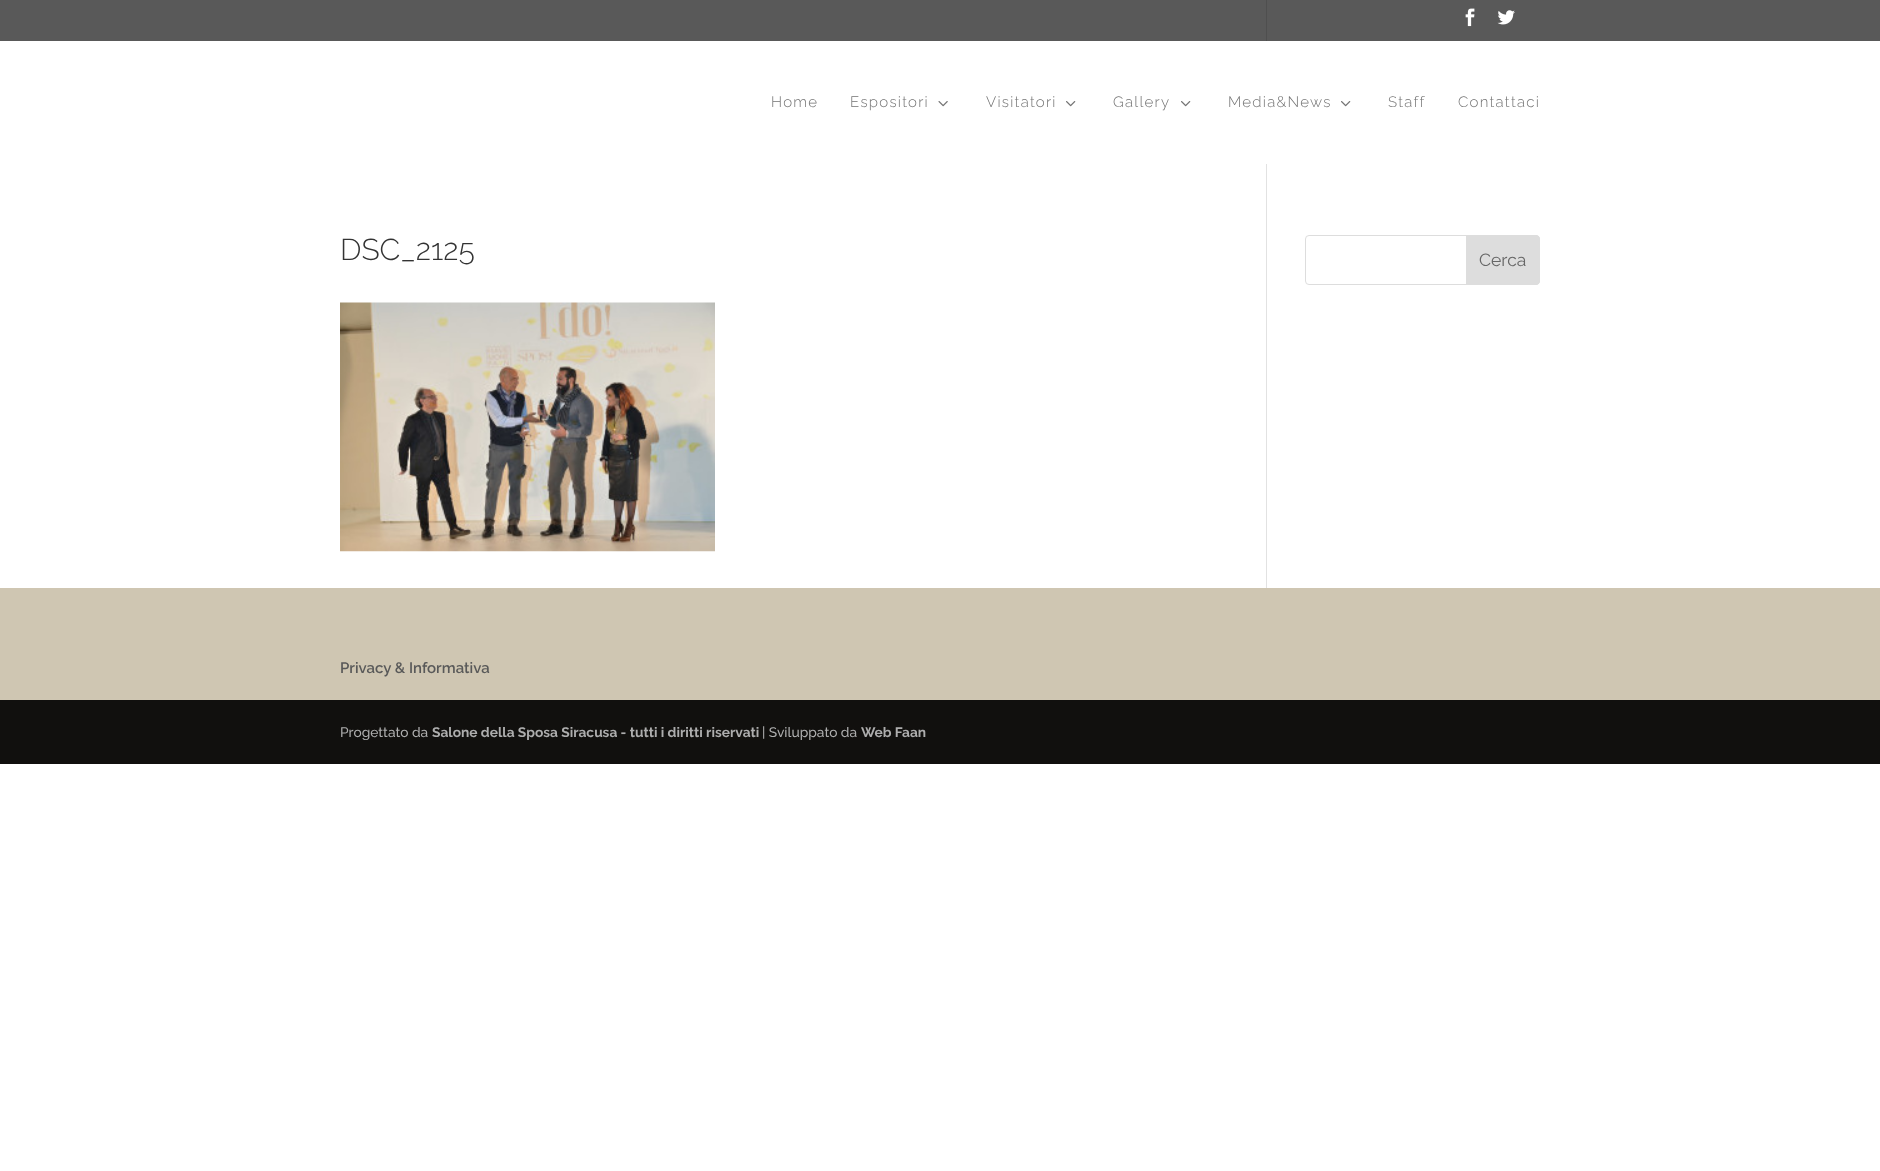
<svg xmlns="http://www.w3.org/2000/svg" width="1880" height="1171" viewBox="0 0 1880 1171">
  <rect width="100%" height="100%" fill="rgb(255,255,255)"/>
  <rect x="0" y="0" width="1880" height="41" fill="rgb(89,89,89)"/>
  <image x="1465" y="8" width="10" height="19" href="pic1.png"/>
  <image x="1497" y="10" width="18" height="15" href="pic2.png"/>
  <g font-family="Raleway" font-size="15" font-weight="300" letter-spacing="1.25" fill="rgb(115,115,115)">
    <text x="771" y="107">Home</text>
    <text x="850" y="107">Espositori</text>
  </g>
  <image x="938" y="101" width="10" height="6" href="pic3.png"/>
  <text x="986" y="107" font-family="Raleway" font-size="15" font-weight="300" letter-spacing="1.25" fill="rgb(115,115,115)">Visitatori</text>
  <image x="1066" y="101" width="10" height="6" href="pic4.png"/>
  <text x="1113" y="107" font-family="Raleway" font-size="15" font-weight="300" letter-spacing="1.25" fill="rgb(115,115,115)">Gallery</text>
  <image x="1181" y="101" width="10" height="6" href="pic4.png"/>
  <text x="1228" y="107" font-family="Raleway" font-size="15" font-weight="300" letter-spacing="1.25" fill="rgb(115,115,115)">Media&amp;News</text>
  <image x="1341" y="101" width="10" height="6" href="pic4.png"/>
  <g font-family="Raleway" font-size="15" font-weight="300" letter-spacing="1.25" fill="rgb(115,115,115)">
    <text x="1388" y="107">Staff</text>
    <text x="1458" y="107">Contattaci</text>
  </g>
  <rect x="1266" y="164" width="1" height="424" fill="rgb(226,226,226)"/>
  <rect x="1266" y="0" width="1" height="41" fill="rgb(79,79,79)"/>
  <text x="340" y="260" font-family="Raleway" font-size="30" font-weight="300" fill="rgb(51,51,51)">DSC_2125</text>
  <image x="340" y="302" width="375" height="250" href="pic5.png"/>
  <rect x="1305.5" y="235.5" width="234" height="49" rx="3.5" fill="none" stroke="rgb(221,221,221)"/>
  <path d="M1466.5 235.5H1536C1538 235.5 1539.5 237 1539.5 239V281C1539.5 283 1538 284.5 1536 284.5H1466.5Z" fill="rgb(221,221,221)" stroke="rgb(221,221,221)"/>
  <text x="1479" y="266" font-family="Raleway" font-size="17.5" fill="rgb(102,102,102)">Cerca</text>
  <rect x="0" y="588" width="1880" height="112" fill="rgb(207,198,178)"/>
  <text x="340" y="673" font-family="Raleway" font-size="15" font-weight="600" fill="rgb(89,89,89)">Privacy &amp; Informativa</text>
  <rect x="0" y="700" width="1880" height="64" fill="rgb(17,16,14)"/>
  <text x="340" y="737" font-family="Raleway" font-size="13.75" font-weight="500" fill="rgb(173,173,173)">Progettato da</text>
  <text x="432" y="737" font-family="Raleway" font-size="13.75" font-weight="bold" fill="rgb(173,173,173)">Salone della Sposa Siracusa - tutti i diritti riservati</text>
  <text x="762" y="737" font-family="Raleway" font-size="13.75" font-weight="500" fill="rgb(173,173,173)">| Sviluppato da</text>
  <text x="861" y="737" font-family="Raleway" font-size="13.75" font-weight="bold" fill="rgb(173,173,173)">Web Faan</text>
</svg>
